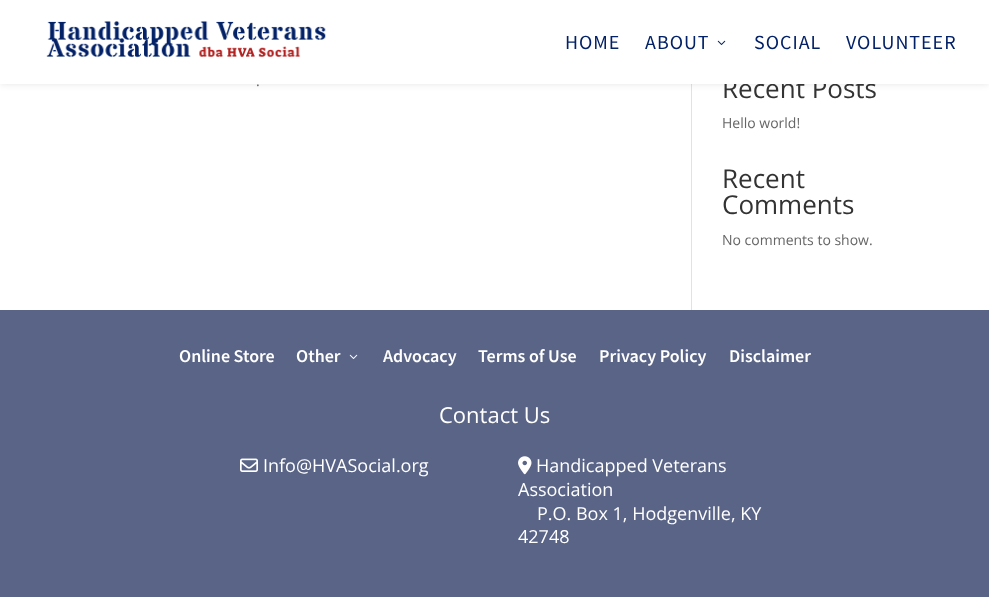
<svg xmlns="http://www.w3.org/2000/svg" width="989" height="597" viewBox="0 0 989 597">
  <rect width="100%" height="100%" fill="rgb(255,255,255)"/>
  <rect x="691" y="84" width="1" height="226" fill="rgb(226,226,226)"/>
  <rect x="0" y="0" width="989" height="84" fill="rgba(0,0,0,0.1)" filter="blur(3.5px)"/>
  <text x="722" y="98" font-family="Open Sans" font-size="26" fill="rgb(51,51,51)">Recent Posts</text>
  <rect x="0" y="0" width="989" height="84" fill="rgb(255,255,255)"/>
  <image x="46" y="21" width="280" height="37" href="pic1.png"/>
  <g font-family="Source Sans Pro" font-size="20" letter-spacing="1" fill="rgb(2,33,102)">
    <text x="565" y="49">HOME</text>
    <text x="645" y="49">ABOUT</text>
  </g>
  <image x="717" y="40" width="9" height="5" href="pic2.png"/>
  <g font-family="Source Sans Pro" font-size="20" letter-spacing="1" fill="rgb(2,33,102)">
    <text x="754" y="49">SOCIAL</text>
    <text x="846" y="49">VOLUNTEER</text>
  </g>
  <g font-family="Open Sans" font-size="14" fill="rgb(102,102,102)">
    <text x="256" y="86">.</text>
    <text x="722" y="128">Hello world!</text>
  </g>
  <g font-family="Open Sans" font-size="26" fill="rgb(51,51,51)">
    <text>
      <tspan x="722" y="188">Recent</tspan>
      <tspan x="722" y="214">Comments</tspan>
    </text>
  </g>
  <text x="722" y="245" font-family="Open Sans" font-size="14" fill="rgb(102,102,102)">No comments to show.</text>
  <rect x="0" y="310" width="989" height="287" fill="rgb(89,100,134)"/>
  <g font-family="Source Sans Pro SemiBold" font-size="18" font-weight="600" fill="rgb(255,255,255)">
    <text x="179" y="362">Online Store</text>
    <text x="296" y="362">Other</text>
  </g>
  <image x="349" y="354" width="9" height="5" href="pic3.png"/>
  <g font-family="Source Sans Pro SemiBold" font-size="18" font-weight="600" fill="rgb(255,255,255)">
    <text x="383" y="362">Advocacy</text>
    <text x="478" y="362">Terms of Use</text>
    <text x="599" y="362">Privacy Policy</text>
    <text x="729" y="362">Disclaimer</text>
  </g>
  <text x="439" y="423" font-family="Open Sans" font-size="22" fill="rgb(255,255,255)">Contact Us</text>
  <image x="240" y="458" width="18" height="14" href="pic4.png"/>
  <text x="263" y="472" font-family="Open Sans" font-size="18" fill="rgb(255,255,255)">Info@HVASocial.org</text>
  <image x="518" y="456" width="14" height="19" href="pic5.png"/>
  <g font-family="Open Sans" font-size="18" fill="rgb(255,255,255)">
    <text x="536" y="472">Handicapped Veterans</text>
    <text x="518" y="496">Association</text>
    <text x="537" y="520">P.O. Box 1, Hodgenville, KY</text>
    <text x="518" y="543">42748</text>
  </g>
</svg>
